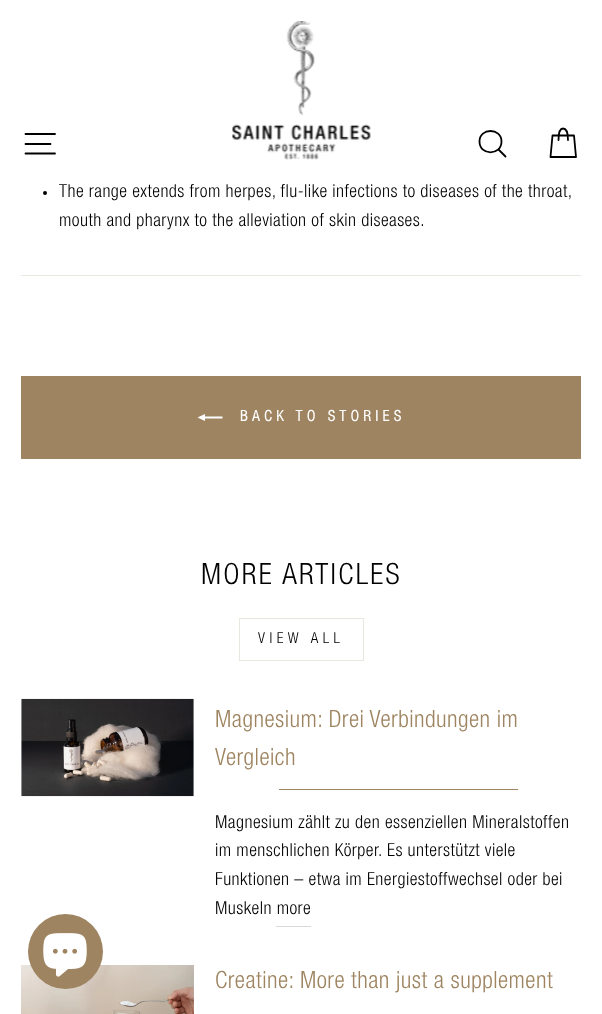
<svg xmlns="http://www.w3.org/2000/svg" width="602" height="1014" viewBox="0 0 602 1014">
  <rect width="100%" height="100%" fill="rgb(255,255,255)"/>
  <rect x="0" y="0" width="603" height="180" fill="rgba(0,0,0,0.2)" filter="blur(0.5px)"/>
  <rect x="0" y="0" width="602" height="180" fill="rgb(255,255,255)"/>
  <path d="M25.5 134H55M25.5 144H50.5M25.5 153.5H55" fill="none" stroke="rgb(0,0,0)" stroke-width="1.8" stroke-linecap="round" stroke-linejoin="round"/>
  <image x="232" y="21" width="139" height="139" href="pic1.png"/>
  <path d="M501.5 141.5C501.5 156 479.5 156 479.5 141.5C479.5 127.5 501.5 127.5 501.5 141.5ZM505.5 156.5L498.5 149.5" fill="none" stroke="rgb(0,0,0)" stroke-width="1.8" stroke-linecap="round" stroke-linejoin="round"/>
  <path d="M558.5 140C558.5 131 560.5 128.5 563 128.5C565.5 128.5 568 131 568 140M552.5 135.5H574L576 157H550.5Z" fill="none" stroke="rgb(0,0,0)" stroke-width="1.8" stroke-linecap="round" stroke-linejoin="round"/>
  <circle cx="45" cy="193" r="2" fill="rgb(0,0,0)"/>
  <g font-family="Helvetica Neue" font-size="18.05" font-weight="300" letter-spacing="0.45" fill="rgb(0,0,0)">
    <text>
      <tspan x="59" y="197">The range extends from herpes, flu-like infections to diseases of the throat,</tspan>
      <tspan x="59" y="226">mouth and pharynx to the alleviation of skin diseases.</tspan>
    </text>
  </g>
  <rect x="21" y="275" width="560" height="1" fill="rgb(232,232,225)"/>
  <rect x="21" y="376" width="560" height="83" fill="rgb(158,132,96)"/>
  <path d="M222.5 416.5V418.5H205V421L197.5 417.5L205 414V416.5Z" fill="rgb(255,255,255)"/>
  <text x="240" y="421" font-family="Helvetica Neue" font-size="15" font-weight="bold" letter-spacing="4.5" fill="rgb(255,255,255)">BACK TO STORIES</text>
  <text x="201" y="584" font-family="Helvetica Neue" font-size="29.25" font-weight="300" letter-spacing="2.25" fill="rgb(0,0,0)">MORE ARTICLES</text>
  <rect x="239.5" y="618.5" width="124" height="42" fill="none" stroke="rgb(232,232,225)"/>
  <text x="258" y="643" font-family="Helvetica Neue" font-size="15" font-weight="300" letter-spacing="4.5" fill="rgb(0,0,0)">VIEW ALL</text>
  <image x="21" y="698" width="173" height="99" href="pic2.png"/>
  <g font-family="Helvetica Neue" font-size="23.75" font-weight="300" letter-spacing="0.45" fill="rgb(158,132,96)">
    <text>
      <tspan x="215" y="727">Magnesium: Drei Verbindungen im</tspan>
      <tspan x="215" y="765">Vergleich</tspan>
    </text>
  </g>
  <rect x="279" y="789" width="239" height="1" fill="rgb(158,132,96)"/>
  <g font-family="Helvetica Neue" font-size="18.05" font-weight="300" letter-spacing="0.45" fill="rgb(0,0,0)">
    <text>
      <tspan x="215" y="828">Magnesium zählt zu den essenziellen Mineralstoffen</tspan>
      <tspan x="215" y="856">im menschlichen Körper. Es unterstützt viele</tspan>
      <tspan x="215" y="885">Funktionen – etwa im Energiestoffwechsel oder bei</tspan>
      <tspan x="215" y="914">Muskeln more</tspan>
    </text>
  </g>
  <rect x="276" y="926" width="35" height="1" fill="rgb(217,217,217)"/>
  <image x="21" y="965" width="173" height="49" href="pic3.png"/>
  <text x="215" y="988" font-family="Helvetica Neue" font-size="23.75" font-weight="300" letter-spacing="0.45" fill="rgb(158,132,96)">Creatine: More than just a supplement</text>
  <circle cx="65.5" cy="951.5" r="37.5" fill="rgb(158,132,96)"/>
  <image x="43" y="933" width="44" height="44" href="pic4.png"/>
</svg>
